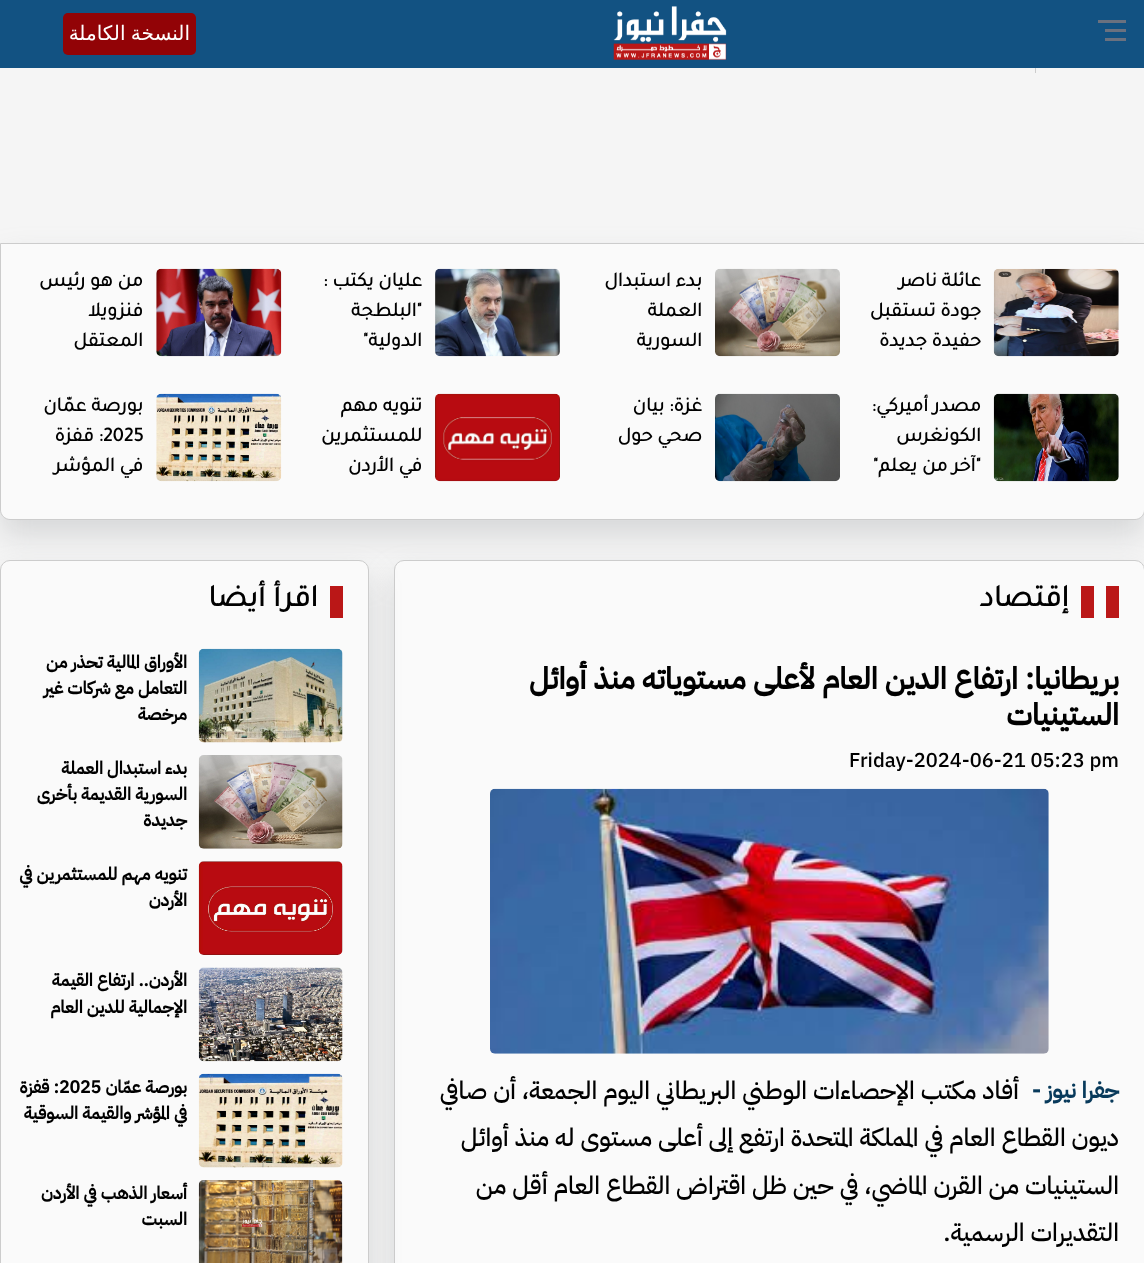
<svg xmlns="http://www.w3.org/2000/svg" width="1144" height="1263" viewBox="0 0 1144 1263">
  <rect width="100%" height="100%" fill="rgb(245,245,245)"/>
  <rect x="1035" y="68" width="1" height="5" fill="rgb(204,204,204)"/>
  <rect x="0" y="0" width="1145" height="68" fill="rgba(0,0,0,0.3)" filter="blur(0.5px)"/>
  <rect x="0" y="0" width="1144" height="68" fill="rgb(18,82,130)"/>
  <rect x="1105" y="29" width="21" height="3" fill="rgb(106,113,127)"/>
  <rect x="1098" y="20" width="28" height="3" fill="rgb(106,113,127)"/>
  <rect x="1105" y="38" width="21" height="3" fill="rgb(106,113,127)"/>
  <image x="613" y="6" width="114" height="54" href="pic1.png"/>
  <rect x="63" y="13" width="133" height="42" rx="5" fill="rgb(146,3,6)"/>
  <text x="190" y="40" word-spacing="-1" font-family="DejaVu Sans" font-size="20" direction="rtl" fill="rgb(255,255,255)">النسخة الكاملة</text>
  <rect x="0" y="259" width="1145" height="277" rx="10" fill="rgba(153,157,160,0.32)" filter="blur(15px)"/>
  <path d="M.5 243.5H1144.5V510C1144.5 515 1140 519.5 1135 519.5H10C5 519.5 .5 515 .5 510Z" fill="rgb(250,250,250)" stroke="rgb(204,204,204)"/>
  <image x="993" y="268" width="126" height="89" href="pic2.png"/>
  <g font-family="Tajawal" font-size="20" font-weight="bold" direction="rtl" fill="rgb(0,0,0)">
    <text>
      <tspan x="981" y="286">عائلة ناصر</tspan>
      <tspan x="981" y="316">جودة تستقبل</tspan>
      <tspan x="981" y="346">حفيدة جديدة</tspan>
    </text>
  </g>
  <image x="715" y="268" width="125" height="89" href="pic3.png"/>
  <g font-family="Tajawal" font-size="20" font-weight="bold" direction="rtl" fill="rgb(0,0,0)">
    <text>
      <tspan x="702" y="286">بدء استبدال</tspan>
      <tspan x="702" y="316">العملة</tspan>
      <tspan x="702" y="346">السورية</tspan>
    </text>
  </g>
  <image x="435" y="268" width="125" height="89" href="pic4.png"/>
  <g font-family="Tajawal" font-size="20" font-weight="bold" direction="rtl" fill="rgb(0,0,0)">
    <text>
      <tspan x="422" y="286">عليان يكتب :</tspan>
      <tspan x="422" y="316">"البلطجة</tspan>
      <tspan x="422" y="346">الدولية"</tspan>
    </text>
  </g>
  <image x="156" y="268" width="126" height="89" href="pic5.png"/>
  <g font-family="Tajawal" font-size="20" font-weight="bold" direction="rtl" fill="rgb(0,0,0)">
    <text>
      <tspan x="143" y="286">من هو رئيس</tspan>
      <tspan x="143" y="316">فنزويلا</tspan>
      <tspan x="143" y="346">المعتقل</tspan>
    </text>
  </g>
  <image x="993" y="393" width="126" height="89" href="pic6.png"/>
  <g font-family="Tajawal" font-size="20" font-weight="bold" direction="rtl" fill="rgb(0,0,0)">
    <text>
      <tspan x="981" y="411">مصدر أميركي:</tspan>
      <tspan x="981" y="441">الكونغرس</tspan>
      <tspan x="981" y="471">"آخر من يعلم"</tspan>
    </text>
  </g>
  <image x="715" y="393" width="125" height="89" href="pic7.png"/>
  <g font-family="Tajawal" font-size="20" font-weight="bold" direction="rtl" fill="rgb(0,0,0)">
    <text>
      <tspan x="702" y="411">غزة: بيان</tspan>
      <tspan x="702" y="441">صحي حول</tspan>
    </text>
  </g>
  <image x="435" y="393" width="125" height="89" href="pic8.png"/>
  <g font-family="Tajawal" font-size="20" font-weight="bold" direction="rtl" fill="rgb(0,0,0)">
    <text>
      <tspan x="422" y="411">تنويه مهم</tspan>
      <tspan x="422" y="441">للمستثمرين</tspan>
      <tspan x="422" y="471">في الأردن</tspan>
    </text>
  </g>
  <image x="156" y="393" width="126" height="89" href="pic9.png"/>
  <text x="143" y="411" font-family="Tajawal" font-size="20" font-weight="bold" direction="rtl" fill="rgb(0,0,0)">بورصة عمّان</text>
  <text x="103" y="441" font-family="Tajawal" font-size="20" font-weight="bold" fill="rgb(0,0,0)">2025</text>
  <g font-family="Tajawal" font-size="20" font-weight="bold" direction="rtl" fill="rgb(0,0,0)">
    <text x="103" y="441">: قفزة</text>
    <text x="143" y="471">في المؤشر</text>
  </g>
  <rect x="394" y="576" width="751" height="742" rx="10" fill="rgba(153,157,160,0.32)" filter="blur(15px)"/>
  <rect x="394.5" y="560.5" width="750" height="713" rx="9.5" fill="rgb(250,250,250)" stroke="rgb(204,204,204)"/>
  <rect x="1106" y="586" width="13" height="32" fill="rgb(186,23,23)"/>
  <text x="1069" y="606" font-family="Tajawal" font-size="31" font-weight="bold" direction="rtl" fill="rgb(0,0,0)">إقتصاد</text>
  <rect x="1081" y="586" width="13" height="32" fill="rgb(186,23,23)"/>
  <g font-family="IBM Plex Sans Arabic" font-size="30" font-weight="bold" direction="rtl" fill="rgb(0,0,0)">
    <text>
      <tspan x="1119" y="689">بريطانيا: ارتفاع الدين العام لأعلى مستوياته منذ أوائل</tspan>
      <tspan x="1119" y="725">الستينيات</tspan>
    </text>
  </g>
  <text x="849" y="767" font-family="IBM Plex Sans Arabic" font-size="20" font-weight="500" fill="rgb(0,0,0)">Friday-2024-06-21 05:23 pm</text>
  <image x="490" y="788" width="559" height="266" href="pic10.png"/>
  <g font-family="IBM Plex Sans Arabic" font-size="25" font-weight="500" direction="rtl" fill="rgb(0,0,0)">
    <text x="1019" y="1099">أفاد مكتب الإحصاءات الوطني البريطاني اليوم الجمعة، أن صافي</text>
    <text>
      <tspan x="1119" y="1146">ديون القطاع العام في المملكة المتحدة ارتفع إلى أعلى مستوى له منذ أوائل</tspan>
      <tspan x="1119" y="1194">الستينيات من القرن الماضي، في حين ظل اقتراض القطاع العام أقل من</tspan>
      <tspan x="1119" y="1241">التقديرات الرسمية.</tspan>
    </text>
  </g>
  <text x="1119" y="1098" font-family="IBM Plex Sans Arabic" font-size="22.5" font-weight="bold" direction="rtl" fill="rgb(8,58,91)">جفرا نيوز -</text>
  <rect x="0" y="576" width="369" height="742" rx="10" fill="rgba(153,157,160,0.32)" filter="blur(15px)"/>
  <rect x="0.5" y="560.5" width="368" height="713" rx="9.5" fill="rgb(250,250,250)" stroke="rgb(204,204,204)"/>
  <text x="318" y="606" font-family="Tajawal" font-size="31" font-weight="bold" direction="rtl" fill="rgb(0,0,0)">اقرأ أيضا</text>
  <rect x="330" y="586" width="13" height="32" fill="rgb(186,23,23)"/>
  <image x="198" y="648" width="145" height="95" href="pic11.png"/>
  <g font-family="IBM Plex Sans Arabic" font-size="17.5" font-weight="bold" direction="rtl" fill="rgb(0,0,0)">
    <text>
      <tspan x="187" y="668">الأوراق المالية تحذر من</tspan>
      <tspan x="187" y="694">التعامل مع شركات غير</tspan>
      <tspan x="187" y="720">مرخصة</tspan>
    </text>
  </g>
  <image x="198" y="755" width="145" height="94" href="pic12.png"/>
  <g font-family="IBM Plex Sans Arabic" font-size="17.5" font-weight="bold" direction="rtl" fill="rgb(0,0,0)">
    <text>
      <tspan x="187" y="774">بدء استبدال العملة</tspan>
      <tspan x="187" y="800">السورية القديمة بأخرى</tspan>
      <tspan x="187" y="826">جديدة</tspan>
    </text>
  </g>
  <image x="198" y="861" width="145" height="94" href="pic13.png"/>
  <g font-family="IBM Plex Sans Arabic" font-size="17.5" font-weight="bold" direction="rtl" fill="rgb(0,0,0)">
    <text>
      <tspan x="187" y="880">تنويه مهم للمستثمرين في</tspan>
      <tspan x="187" y="906">الأردن</tspan>
    </text>
  </g>
  <image x="198" y="967" width="145" height="95" href="pic14.png"/>
  <g font-family="IBM Plex Sans Arabic" font-size="17.5" font-weight="bold" direction="rtl" fill="rgb(0,0,0)">
    <text>
      <tspan x="187" y="986">الأردن.. ارتفاع القيمة</tspan>
      <tspan x="187" y="1013">الإجمالية للدين العام</tspan>
    </text>
  </g>
  <image x="198" y="1073" width="145" height="95" href="pic15.png"/>
  <text x="187" y="1093" font-family="IBM Plex Sans Arabic" font-size="17.5" font-weight="bold" direction="rtl" fill="rgb(0,0,0)">بورصة عمّان</text>
  <text x="59" y="1093" font-family="IBM Plex Sans Arabic" font-size="17.5" font-weight="bold" fill="rgb(0,0,0)">2025</text>
  <g font-family="IBM Plex Sans Arabic" font-size="17.5" font-weight="bold" direction="rtl" fill="rgb(0,0,0)">
    <text x="59" y="1093">: قفزة</text>
    <text x="187" y="1119">في المؤشر والقيمة السوقية</text>
  </g>
  <image x="198" y="1180" width="145" height="83" href="pic16.png"/>
  <g font-family="IBM Plex Sans Arabic" font-size="17.5" font-weight="bold" direction="rtl" fill="rgb(0,0,0)">
    <text>
      <tspan x="187" y="1199">أسعار الذهب في الأردن</tspan>
      <tspan x="187" y="1225">السبت</tspan>
    </text>
  </g>
</svg>
